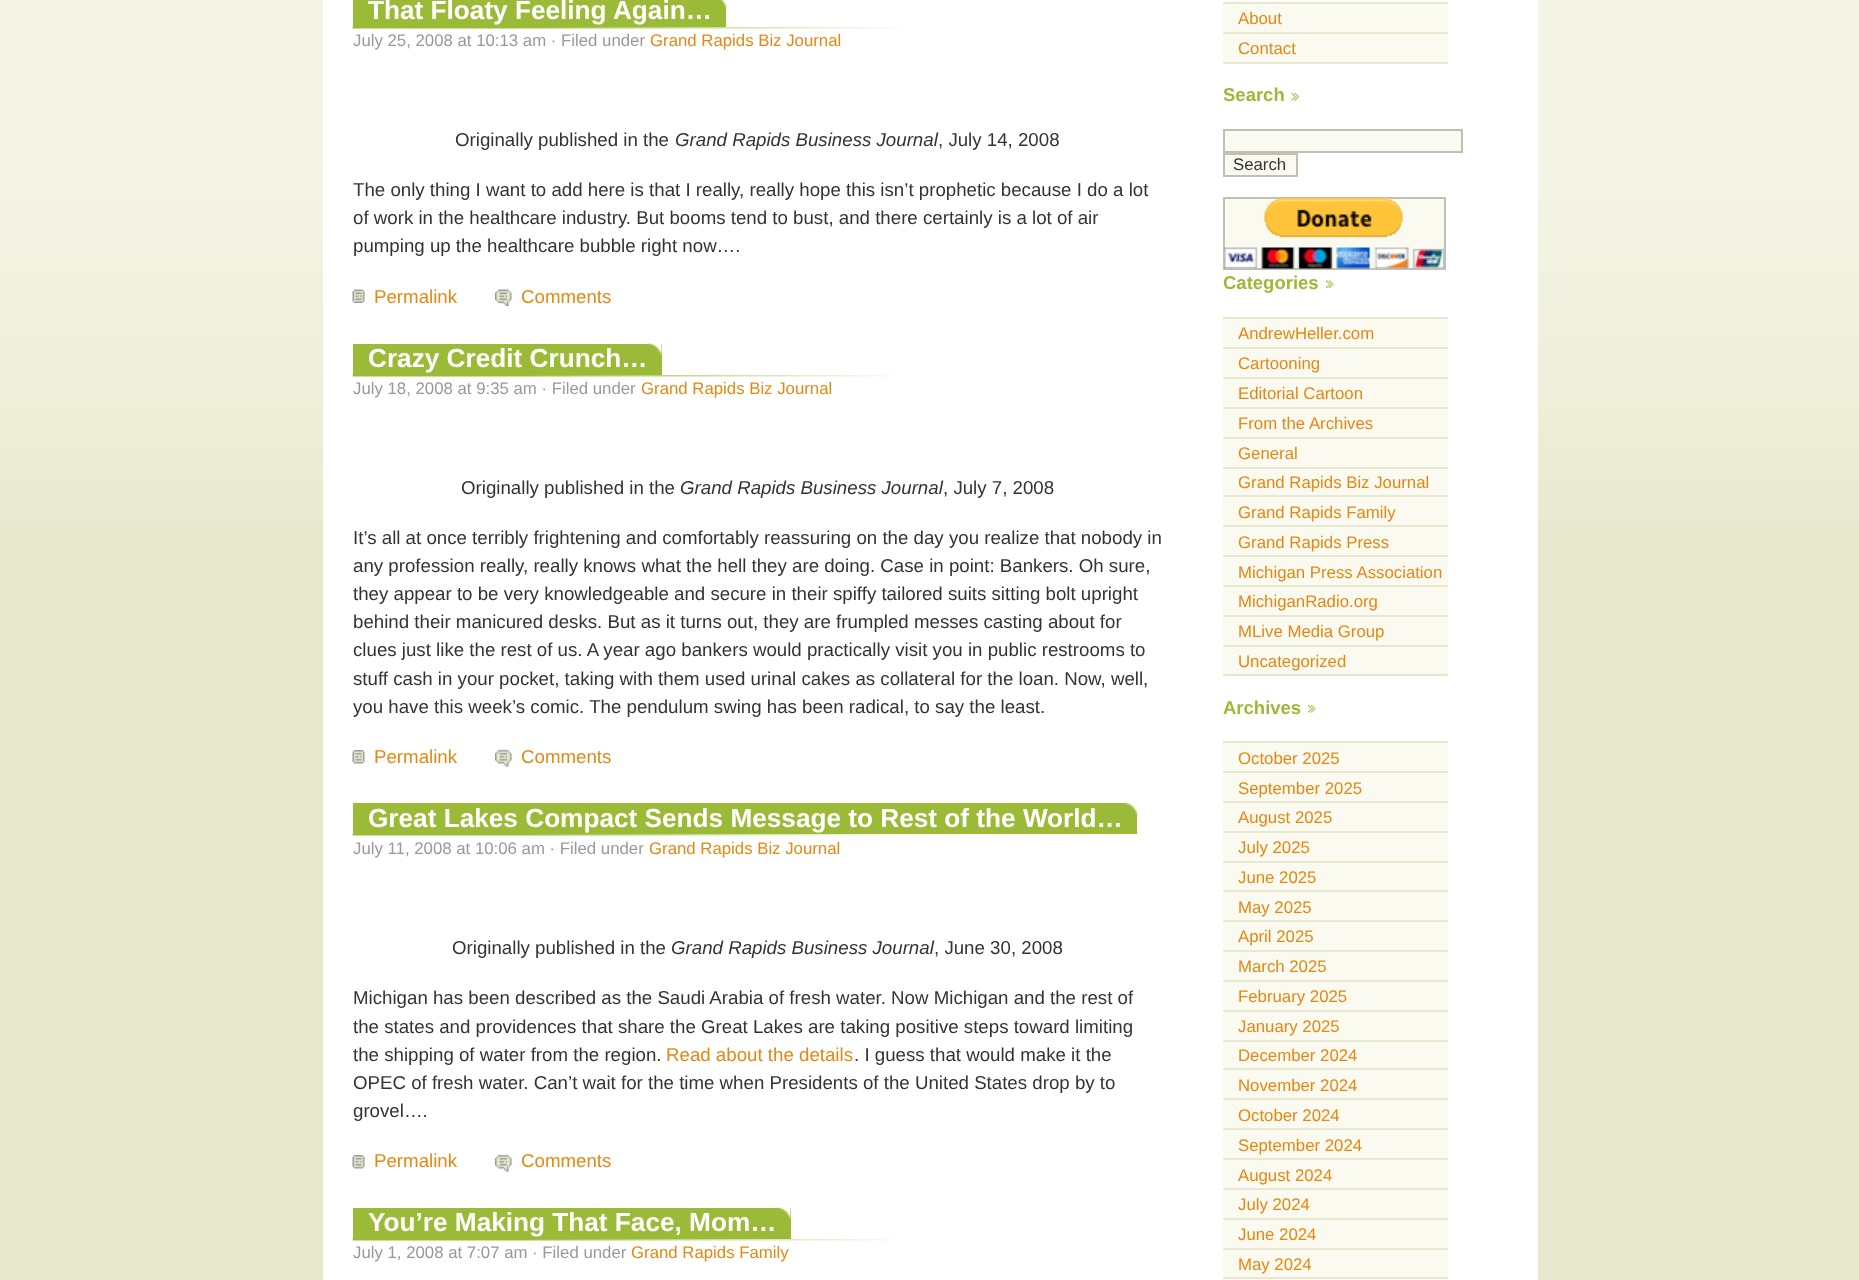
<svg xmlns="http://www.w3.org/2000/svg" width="1859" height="1280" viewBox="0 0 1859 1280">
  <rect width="100%" height="100%" fill="rgb(232,232,206)"/>
  <image x="0" y="0" width="1859" height="520" href="pic1.png"/>
  <rect x="323" y="0" width="1215" height="1280" fill="rgb(255,255,255)"/>
  <rect x="353" y="0" width="373" height="27" fill="rgb(155,187,56)"/>
  <image x="720" y="0" width="6" height="8" href="pic2.png"/>
  <text x="368" y="19" font-family="Liberation Sans" font-size="26.2" font-weight="bold" fill="rgb(255,255,255)">That Floaty Feeling Again…</text>
  <image x="352" y="27" width="552" height="2" href="pic3.png"/>
  <text x="353" y="46" font-family="Liberation Sans" font-size="16.8" fill="rgb(153,153,153)">July 25, 2008 at 10:13 am · Filed under</text>
  <text x="650" y="46" font-family="Liberation Sans" font-size="16.8" fill="rgb(229,135,18)">Grand Rapids Biz Journal</text>
  <text x="455" y="146" font-family="Liberation Sans" font-size="18.7" fill="rgb(51,51,51)">Originally published in the</text>
  <text x="675" y="146" font-family="Liberation Sans" font-size="18.7" font-style="italic" fill="rgb(51,51,51)">Grand Rapids Business Journal</text>
  <g font-family="Liberation Sans" font-size="18.7" fill="rgb(51,51,51)">
    <text x="938" y="146">, July 14, 2008</text>
    <text>
      <tspan x="353" y="196">The only thing I want to add here is that I really, really hope this isn’t prophetic because I do a lot</tspan>
      <tspan x="353" y="224">of work in the healthcare industry. But booms tend to bust, and there certainly is a lot of air</tspan>
      <tspan x="353" y="252">pumping up the healthcare bubble right now….</tspan>
    </text>
  </g>
  <image x="352" y="289" width="13" height="14" href="pic4.png"/>
  <text x="374" y="303" font-family="Liberation Sans" font-size="18.7" fill="rgb(229,135,18)">Permalink</text>
  <image x="495" y="289" width="17" height="17" href="pic5.png"/>
  <text x="521" y="303" font-family="Liberation Sans" font-size="18.7" fill="rgb(229,135,18)">Comments</text>
  <rect x="353" y="344" width="309" height="31" fill="rgb(155,187,56)"/>
  <image x="648" y="343" width="14" height="13" href="pic6.png"/>
  <text x="368" y="367" font-family="Liberation Sans" font-size="26.2" font-weight="bold" fill="rgb(255,255,255)">Crazy Credit Crunch…</text>
  <image x="352" y="375" width="552" height="2" href="pic3.png"/>
  <text x="353" y="394" font-family="Liberation Sans" font-size="16.8" fill="rgb(153,153,153)">July 18, 2008 at 9:35 am · Filed under</text>
  <text x="641" y="394" font-family="Liberation Sans" font-size="16.8" fill="rgb(229,135,18)">Grand Rapids Biz Journal</text>
  <text x="461" y="494" font-family="Liberation Sans" font-size="18.7" fill="rgb(51,51,51)">Originally published in the</text>
  <text x="680" y="494" font-family="Liberation Sans" font-size="18.7" font-style="italic" fill="rgb(51,51,51)">Grand Rapids Business Journal</text>
  <g font-family="Liberation Sans" font-size="18.7" fill="rgb(51,51,51)">
    <text x="943" y="494">, July 7, 2008</text>
    <text>
      <tspan x="353" y="544">It’s all at once terribly frightening and comfortably reassuring on the day you realize that nobody in</tspan>
      <tspan x="353" y="572">any profession really, really knows what the hell they are doing. Case in point: Bankers. Oh sure,</tspan>
      <tspan x="353" y="600">they appear to be very knowledgeable and secure in their spiffy tailored suits sitting bolt upright</tspan>
      <tspan x="353" y="628">behind their manicured desks. But as it turns out, they are frumpled messes casting about for</tspan>
      <tspan x="353" y="656">clues just like the rest of us. A year ago bankers would practically visit you in public restrooms to</tspan>
      <tspan x="353" y="685">stuff cash in your pocket, taking with them used urinal cakes as collateral for the loan. Now, well,</tspan>
      <tspan x="353" y="713">you have this week’s comic. The pendulum swing has been radical, to say the least.</tspan>
    </text>
  </g>
  <image x="352" y="750" width="13" height="14" href="pic7.png"/>
  <text x="374" y="763" font-family="Liberation Sans" font-size="18.7" fill="rgb(229,135,18)">Permalink</text>
  <image x="495" y="749" width="17" height="18" href="pic8.png"/>
  <text x="521" y="763" font-family="Liberation Sans" font-size="18.7" fill="rgb(229,135,18)">Comments</text>
  <rect x="353" y="803" width="784" height="31" fill="rgb(155,187,56)"/>
  <image x="1123" y="802" width="14" height="13" href="pic9.png"/>
  <text x="368" y="827" font-family="Liberation Sans" font-size="26.2" font-weight="bold" fill="rgb(255,255,255)">Great Lakes Compact Sends Message to Rest of the World…</text>
  <image x="352" y="834" width="552" height="2" href="pic3.png"/>
  <text x="353" y="854" font-family="Liberation Sans" font-size="16.8" fill="rgb(153,153,153)">July 11, 2008 at 10:06 am · Filed under</text>
  <text x="649" y="854" font-family="Liberation Sans" font-size="16.8" fill="rgb(229,135,18)">Grand Rapids Biz Journal</text>
  <text x="452" y="954" font-family="Liberation Sans" font-size="18.7" fill="rgb(51,51,51)">Originally published in the</text>
  <text x="671" y="954" font-family="Liberation Sans" font-size="18.7" font-style="italic" fill="rgb(51,51,51)">Grand Rapids Business Journal</text>
  <g font-family="Liberation Sans" font-size="18.7" fill="rgb(51,51,51)">
    <text x="934" y="954">, June 30, 2008</text>
    <text>
      <tspan x="353" y="1004">Michigan has been described as the Saudi Arabia of fresh water. Now Michigan and the rest of</tspan>
      <tspan x="353" y="1033">the states and providences that share the Great Lakes are taking positive steps toward limiting</tspan>
      <tspan x="353" y="1061">the shipping of water from the region.</tspan>
    </text>
  </g>
  <text x="666" y="1061" font-family="Liberation Sans" font-size="18.7" fill="rgb(229,135,18)">Read about the details</text>
  <g font-family="Liberation Sans" font-size="18.7" fill="rgb(51,51,51)">
    <text x="854" y="1061">. I guess that would make it the</text>
    <text>
      <tspan x="353" y="1089">OPEC of fresh water. Can’t wait for the time when Presidents of the United States drop by to</tspan>
      <tspan x="353" y="1117">grovel….</tspan>
    </text>
  </g>
  <image x="352" y="1155" width="13" height="14" href="pic7.png"/>
  <text x="374" y="1167" font-family="Liberation Sans" font-size="18.7" fill="rgb(229,135,18)">Permalink</text>
  <image x="495" y="1154" width="17" height="18" href="pic8.png"/>
  <text x="521" y="1167" font-family="Liberation Sans" font-size="18.7" fill="rgb(229,135,18)">Comments</text>
  <rect x="353" y="1208" width="438" height="31" fill="rgb(155,187,56)"/>
  <image x="777" y="1207" width="14" height="13" href="pic6.png"/>
  <text x="368" y="1231" font-family="Liberation Sans" font-size="26.2" font-weight="bold" fill="rgb(255,255,255)">You’re Making That Face, Mom…</text>
  <image x="352" y="1239" width="552" height="2" href="pic3.png"/>
  <text x="353" y="1258" font-family="Liberation Sans" font-size="16.8" fill="rgb(153,153,153)">July 1, 2008 at 7:07 am · Filed under</text>
  <text x="631" y="1258" font-family="Liberation Sans" font-size="16.8" fill="rgb(229,135,18)">Grand Rapids Family</text>
  <rect x="1223" y="4" width="225" height="58" fill="rgb(250,250,240)"/>
  <rect x="1223" y="2" width="225" height="2" fill="rgb(232,231,208)"/>
  <rect x="1223" y="32" width="225" height="2" fill="rgb(232,231,208)"/>
  <text x="1238" y="24" font-family="Liberation Sans" font-size="16.8" fill="rgb(229,135,18)">About</text>
  <rect x="1223" y="62" width="225" height="2" fill="rgb(232,231,208)"/>
  <text x="1238" y="54" font-family="Liberation Sans" font-size="16.8" fill="rgb(229,135,18)">Contact</text>
  <text x="1223" y="101" font-family="Liberation Sans" font-size="18.5" font-weight="bold" fill="rgb(155,187,56)">Search</text>
  <image x="1291" y="92" width="8" height="9" href="pic10.png"/>
  <rect x="1224" y="130" width="238" height="22" fill="rgb(250,250,240)" stroke="rgb(193,192,181)" stroke-width="2"/>
  <rect x="1224" y="154" width="73" height="22" fill="rgb(250,250,240)" stroke="rgb(193,192,181)" stroke-width="2"/>
  <text x="1233" y="170" font-family="Liberation Sans" font-size="16.8" fill="rgb(51,51,51)">Search</text>
  <rect x="1224" y="198" width="221" height="71" fill="rgb(250,250,240)" stroke="rgb(193,192,181)" stroke-width="2"/>
  <image x="1224" y="198" width="221" height="71" href="pic11.png"/>
  <text x="1223" y="289" font-family="Liberation Sans" font-size="18.5" font-weight="bold" fill="rgb(155,187,56)">Categories</text>
  <image x="1326" y="280" width="8" height="8" href="pic12.png"/>
  <rect x="1223" y="319" width="225" height="355" fill="rgb(250,250,240)"/>
  <rect x="1223" y="317" width="225" height="2" fill="rgb(232,231,208)"/>
  <rect x="1223" y="347" width="225" height="2" fill="rgb(232,231,208)"/>
  <text x="1238" y="339" font-family="Liberation Sans" font-size="16.8" fill="rgb(229,135,18)">AndrewHeller.com</text>
  <rect x="1223" y="377" width="225" height="2" fill="rgb(232,231,208)"/>
  <text x="1238" y="369" font-family="Liberation Sans" font-size="16.8" fill="rgb(229,135,18)">Cartooning</text>
  <rect x="1223" y="407" width="225" height="2" fill="rgb(232,231,208)"/>
  <text x="1238" y="399" font-family="Liberation Sans" font-size="16.8" fill="rgb(229,135,18)">Editorial Cartoon</text>
  <rect x="1223" y="437" width="225" height="2" fill="rgb(232,231,208)"/>
  <text x="1238" y="429" font-family="Liberation Sans" font-size="16.8" fill="rgb(229,135,18)">From the Archives</text>
  <rect x="1223" y="467" width="225" height="2" fill="rgb(232,231,208)"/>
  <text x="1238" y="459" font-family="Liberation Sans" font-size="16.8" fill="rgb(229,135,18)">General</text>
  <rect x="1223" y="495" width="225" height="2" fill="rgb(232,231,208)"/>
  <text x="1238" y="488" font-family="Liberation Sans" font-size="16.8" fill="rgb(229,135,18)">Grand Rapids Biz Journal</text>
  <rect x="1223" y="525" width="225" height="2" fill="rgb(232,231,208)"/>
  <text x="1238" y="518" font-family="Liberation Sans" font-size="16.8" fill="rgb(229,135,18)">Grand Rapids Family</text>
  <rect x="1223" y="555" width="225" height="2" fill="rgb(232,231,208)"/>
  <text x="1238" y="548" font-family="Liberation Sans" font-size="16.8" fill="rgb(229,135,18)">Grand Rapids Press</text>
  <rect x="1223" y="585" width="225" height="2" fill="rgb(232,231,208)"/>
  <text x="1238" y="578" font-family="Liberation Sans" font-size="16.8" fill="rgb(229,135,18)">Michigan Press Association</text>
  <rect x="1223" y="615" width="225" height="2" fill="rgb(232,231,208)"/>
  <text x="1238" y="607" font-family="Liberation Sans" font-size="16.8" fill="rgb(229,135,18)">MichiganRadio.org</text>
  <rect x="1223" y="645" width="225" height="2" fill="rgb(232,231,208)"/>
  <text x="1238" y="637" font-family="Liberation Sans" font-size="16.8" fill="rgb(229,135,18)">MLive Media Group</text>
  <rect x="1223" y="674" width="225" height="2" fill="rgb(232,231,208)"/>
  <text x="1238" y="667" font-family="Liberation Sans" font-size="16.8" fill="rgb(229,135,18)">Uncategorized</text>
  <text x="1223" y="714" font-family="Liberation Sans" font-size="18.5" font-weight="bold" fill="rgb(155,187,56)">Archives</text>
  <image x="1308" y="704" width="8" height="9" href="pic13.png"/>
  <rect x="1223" y="743" width="225" height="537" fill="rgb(250,250,240)"/>
  <rect x="1223" y="741" width="225" height="2" fill="rgb(232,231,208)"/>
  <rect x="1223" y="771" width="225" height="2" fill="rgb(232,231,208)"/>
  <text x="1238" y="764" font-family="Liberation Sans" font-size="16.8" fill="rgb(229,135,18)">October 2025</text>
  <rect x="1223" y="801" width="225" height="2" fill="rgb(232,231,208)"/>
  <text x="1238" y="794" font-family="Liberation Sans" font-size="16.8" fill="rgb(229,135,18)">September 2025</text>
  <rect x="1223" y="831" width="225" height="2" fill="rgb(232,231,208)"/>
  <text x="1238" y="823" font-family="Liberation Sans" font-size="16.8" fill="rgb(229,135,18)">August 2025</text>
  <rect x="1223" y="861" width="225" height="2" fill="rgb(232,231,208)"/>
  <text x="1238" y="853" font-family="Liberation Sans" font-size="16.8" fill="rgb(229,135,18)">July 2025</text>
  <rect x="1223" y="890" width="225" height="2" fill="rgb(232,231,208)"/>
  <text x="1238" y="883" font-family="Liberation Sans" font-size="16.8" fill="rgb(229,135,18)">June 2025</text>
  <rect x="1223" y="920" width="225" height="2" fill="rgb(232,231,208)"/>
  <text x="1238" y="913" font-family="Liberation Sans" font-size="16.8" fill="rgb(229,135,18)">May 2025</text>
  <rect x="1223" y="950" width="225" height="2" fill="rgb(232,231,208)"/>
  <text x="1238" y="942" font-family="Liberation Sans" font-size="16.8" fill="rgb(229,135,18)">April 2025</text>
  <rect x="1223" y="980" width="225" height="2" fill="rgb(232,231,208)"/>
  <text x="1238" y="972" font-family="Liberation Sans" font-size="16.8" fill="rgb(229,135,18)">March 2025</text>
  <rect x="1223" y="1010" width="225" height="2" fill="rgb(232,231,208)"/>
  <text x="1238" y="1002" font-family="Liberation Sans" font-size="16.8" fill="rgb(229,135,18)">February 2025</text>
  <rect x="1223" y="1040" width="225" height="2" fill="rgb(232,231,208)"/>
  <text x="1238" y="1032" font-family="Liberation Sans" font-size="16.8" fill="rgb(229,135,18)">January 2025</text>
  <rect x="1223" y="1068" width="225" height="2" fill="rgb(232,231,208)"/>
  <text x="1238" y="1061" font-family="Liberation Sans" font-size="16.8" fill="rgb(229,135,18)">December 2024</text>
  <rect x="1223" y="1098" width="225" height="2" fill="rgb(232,231,208)"/>
  <text x="1238" y="1091" font-family="Liberation Sans" font-size="16.8" fill="rgb(229,135,18)">November 2024</text>
  <rect x="1223" y="1128" width="225" height="2" fill="rgb(232,231,208)"/>
  <text x="1238" y="1121" font-family="Liberation Sans" font-size="16.8" fill="rgb(229,135,18)">October 2024</text>
  <rect x="1223" y="1158" width="225" height="2" fill="rgb(232,231,208)"/>
  <text x="1238" y="1151" font-family="Liberation Sans" font-size="16.8" fill="rgb(229,135,18)">September 2024</text>
  <rect x="1223" y="1188" width="225" height="2" fill="rgb(232,231,208)"/>
  <text x="1238" y="1181" font-family="Liberation Sans" font-size="16.8" fill="rgb(229,135,18)">August 2024</text>
  <rect x="1223" y="1218" width="225" height="2" fill="rgb(232,231,208)"/>
  <text x="1238" y="1210" font-family="Liberation Sans" font-size="16.8" fill="rgb(229,135,18)">July 2024</text>
  <rect x="1223" y="1248" width="225" height="2" fill="rgb(232,231,208)"/>
  <text x="1238" y="1240" font-family="Liberation Sans" font-size="16.8" fill="rgb(229,135,18)">June 2024</text>
  <rect x="1223" y="1277" width="225" height="2" fill="rgb(232,231,208)"/>
  <text x="1238" y="1270" font-family="Liberation Sans" font-size="16.8" fill="rgb(229,135,18)">May 2024</text>
</svg>
